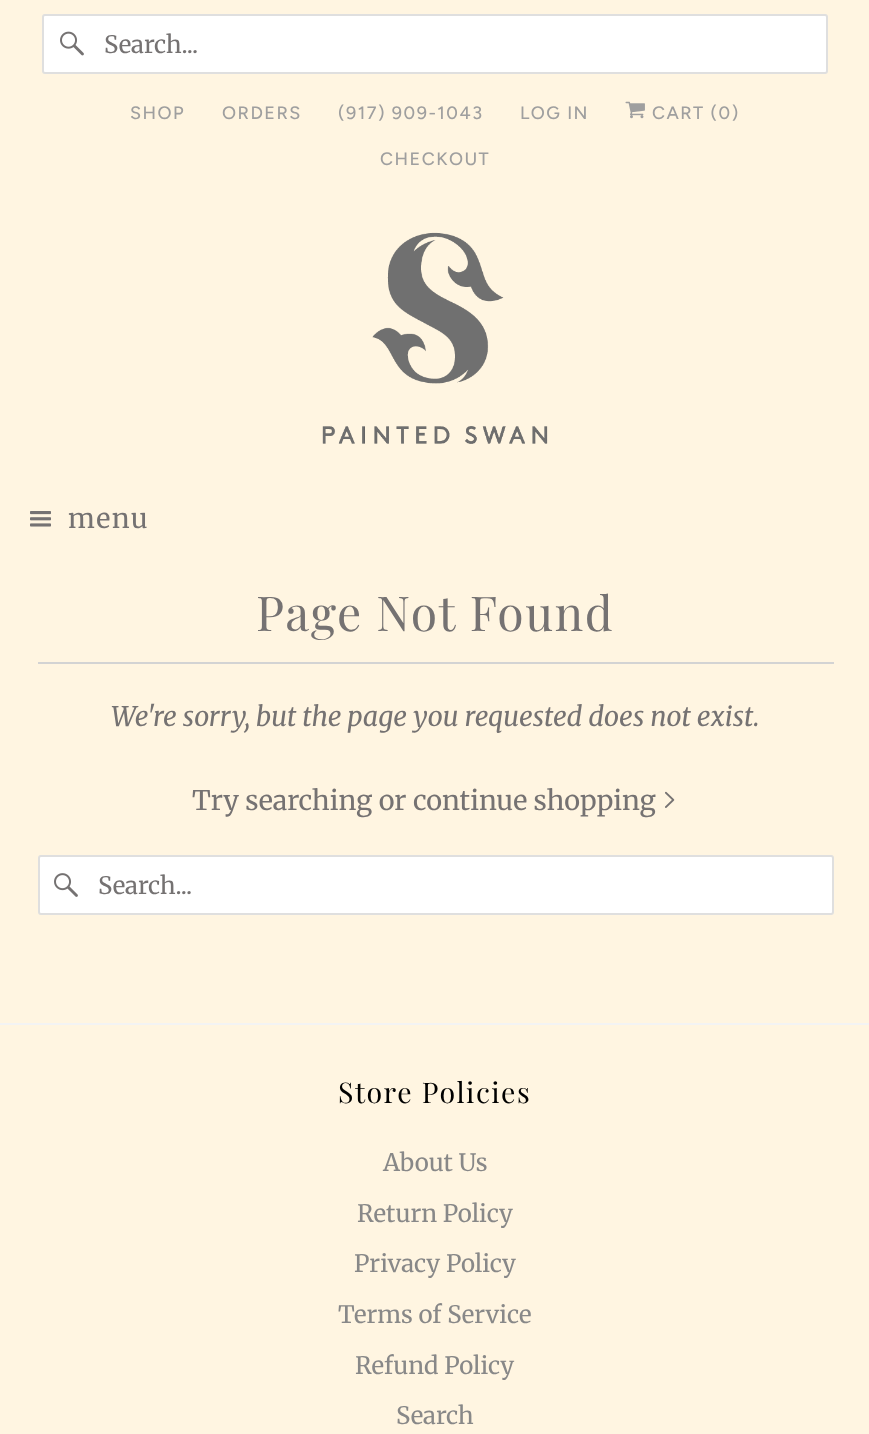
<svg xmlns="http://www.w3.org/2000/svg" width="869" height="1434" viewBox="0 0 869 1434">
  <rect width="100%" height="100%" fill="rgb(255,245,225)"/>
  <rect x="43" y="15" width="784" height="58" rx="2" fill="rgb(255,255,255)" stroke="rgb(223,223,223)" stroke-width="2"/>
  <image x="60" y="31" width="24" height="25" href="pic1.png"/>
  <text x="104" y="53" font-family="Merriweather" font-size="24" fill="rgb(117,114,114)">Search...</text>
  <g font-family="Figtree" font-size="18" font-weight="500" letter-spacing="1.5" fill="rgb(159,159,159)">
    <text x="130" y="119">SHOP</text>
    <text x="222" y="119">ORDERS</text>
    <text x="338" y="119">(917) 909-1043</text>
    <text x="520" y="119">LOG IN</text>
  </g>
  <image x="625" y="101" width="20" height="18" href="pic2.png"/>
  <g font-family="Figtree" font-size="18" font-weight="500" letter-spacing="1.5" fill="rgb(159,159,159)">
    <text x="652" y="119">CART (0)</text>
    <text x="380" y="165">CHECKOUT</text>
  </g>
  <image x="322" y="232" width="226" height="212" href="pic3.png"/>
  <image x="30" y="511" width="21" height="16" href="pic4.png"/>
  <text x="68" y="528" font-family="Merriweather" font-size="27" letter-spacing="1.5" fill="rgb(117,114,114)">menu</text>
  <rect x="38" y="662" width="796" height="2" fill="rgb(211,211,211)"/>
  <text x="256" y="631" font-family="Playfair Display" font-size="48" letter-spacing="1.5" fill="rgb(117,114,114)">Page Not Found</text>
  <text x="111" y="726" font-family="Merriweather" font-size="27" font-style="italic" fill="rgb(117,114,114)">We're sorry, but the page you requested does not exist.</text>
  <text x="192" y="810" font-family="Merriweather" font-size="27" fill="rgb(117,114,114)">Try searching or continue shopping</text>
  <image x="665" y="791" width="10" height="17" href="pic5.png"/>
  <rect x="39" y="856" width="794" height="58" rx="2" fill="rgb(255,255,255)" stroke="rgb(223,223,223)" stroke-width="2"/>
  <image x="54" y="873" width="24" height="24" href="pic6.png"/>
  <text x="98" y="894" font-family="Merriweather" font-size="24" fill="rgb(117,114,114)">Search...</text>
  <rect x="0" y="1023" width="869" height="2" fill="rgb(243,243,243)"/>
  <text x="338" y="1103" font-family="Playfair Display" font-size="28.5" letter-spacing="1.5" fill="rgb(0,0,0)">Store Policies</text>
  <g font-family="Merriweather" font-size="24" fill="rgb(136,136,136)">
    <text x="383" y="1171">About Us</text>
    <text x="357" y="1222">Return Policy</text>
    <text x="354" y="1272">Privacy Policy</text>
    <text x="338" y="1323">Terms of Service</text>
    <text x="355" y="1374">Refund Policy</text>
    <text x="396" y="1424">Search</text>
  </g>
</svg>
